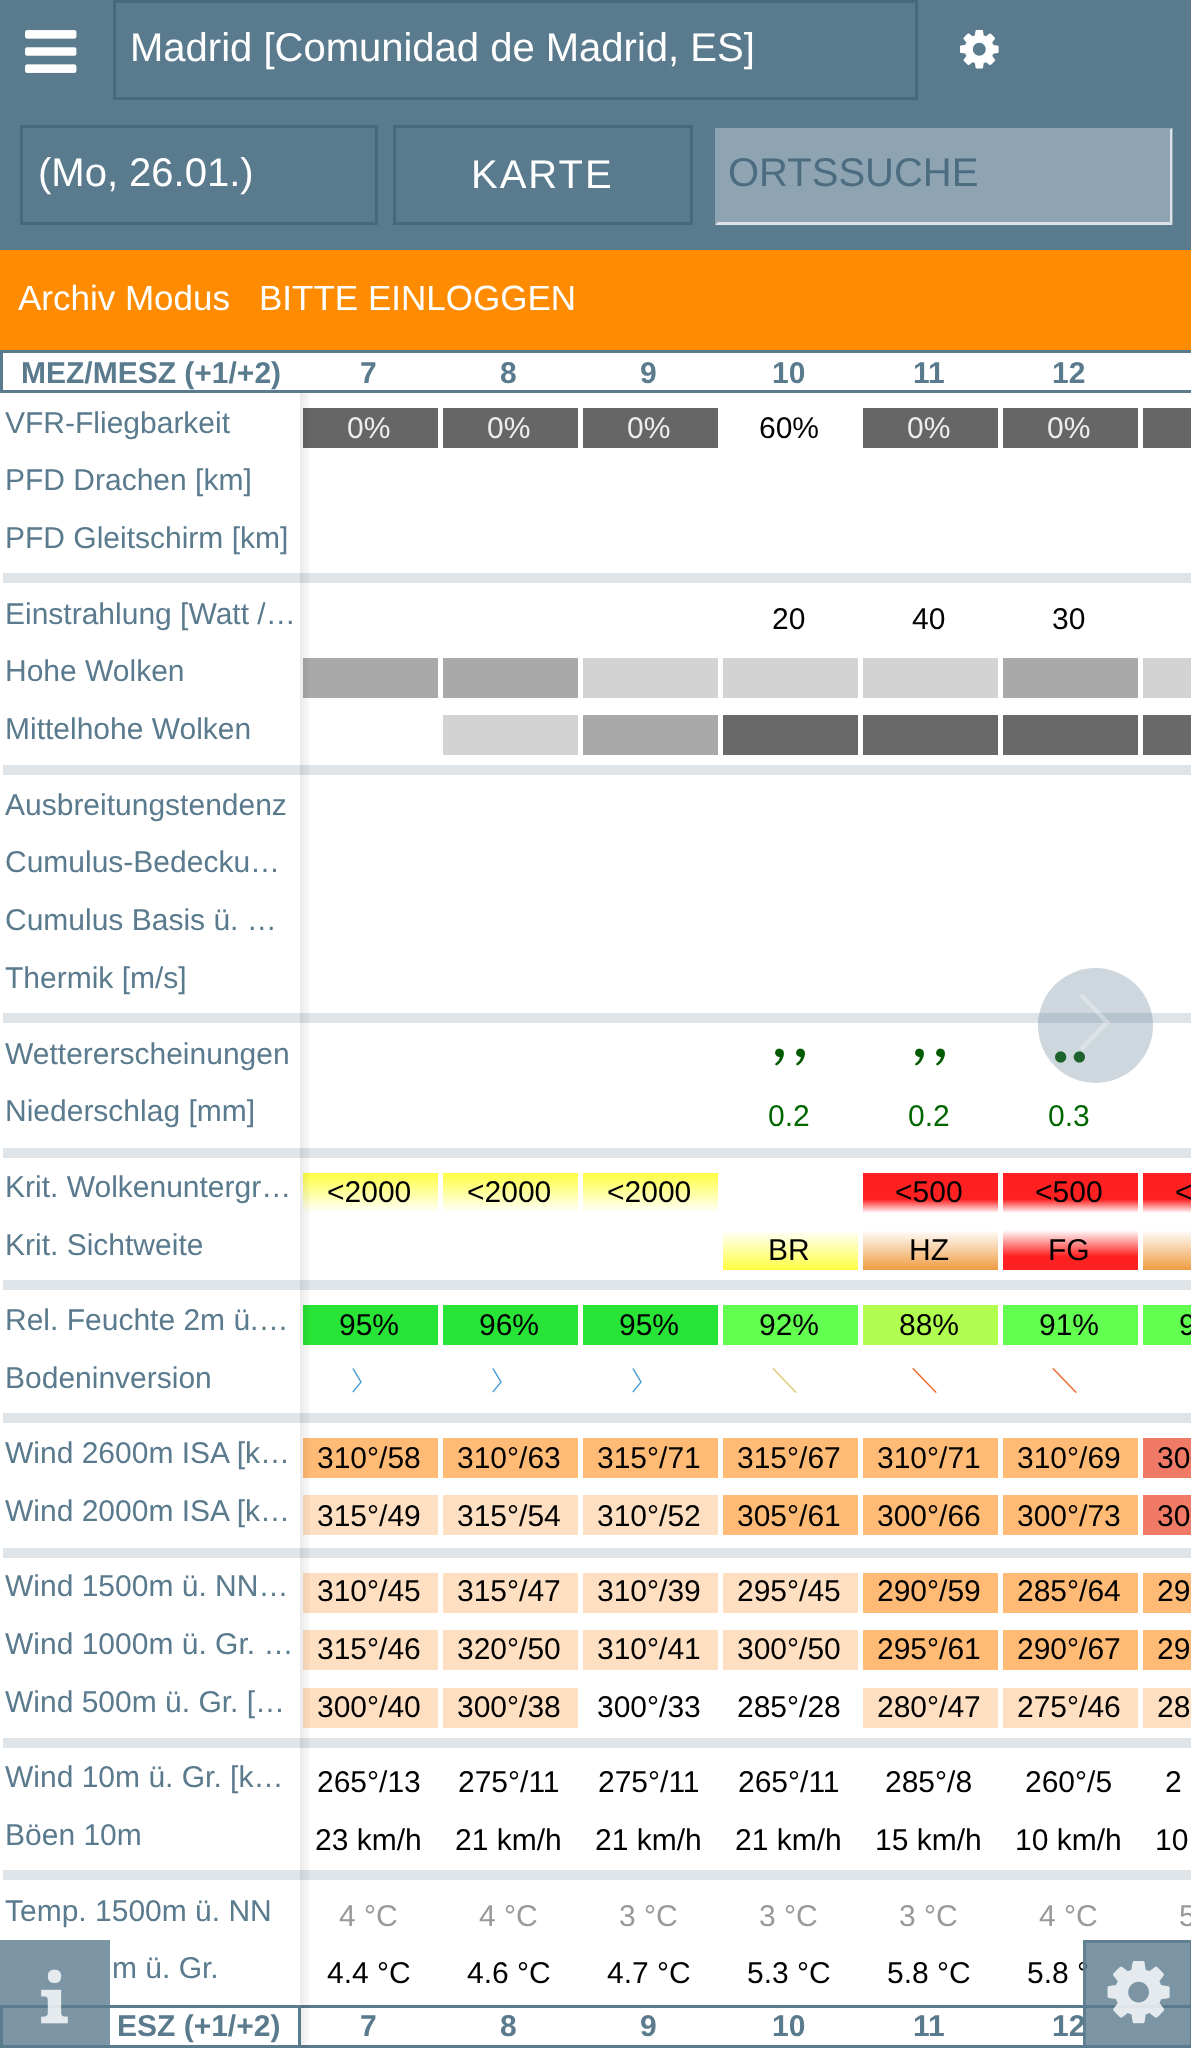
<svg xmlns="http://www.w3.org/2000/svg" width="1191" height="2048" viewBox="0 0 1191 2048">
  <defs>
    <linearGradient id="g1" gradientUnits="userSpaceOnUse" x1="370" y1="1173" x2="370" y2="1213"><stop offset="0" stop-color="rgb(255,255,66)"/><stop offset="1" stop-color="rgb(255,255,255)"/></linearGradient>
    <clipPath id="clip1"><rect x="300" y="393" width="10" height="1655"/></clipPath>
    <linearGradient id="g2" gradientUnits="userSpaceOnUse" x1="510" y1="1173" x2="510" y2="1213"><stop offset="0" stop-color="rgb(255,255,66)"/><stop offset="1" stop-color="rgb(255,255,255)"/></linearGradient>
    <linearGradient id="g3" gradientUnits="userSpaceOnUse" x1="650" y1="1173" x2="650" y2="1213"><stop offset="0" stop-color="rgb(255,255,66)"/><stop offset="1" stop-color="rgb(255,255,255)"/></linearGradient>
    <linearGradient id="g4" gradientUnits="userSpaceOnUse" x1="930" y1="1173" x2="930" y2="1213"><stop offset="0" stop-color="rgb(255,33,33)"/><stop offset="0.66" stop-color="rgb(255,33,33)"/><stop offset="1" stop-color="rgb(255,255,255)"/></linearGradient>
    <linearGradient id="g5" gradientUnits="userSpaceOnUse" x1="1070" y1="1173" x2="1070" y2="1213"><stop offset="0" stop-color="rgb(255,33,33)"/><stop offset="0.66" stop-color="rgb(255,33,33)"/><stop offset="1" stop-color="rgb(255,255,255)"/></linearGradient>
    <linearGradient id="g6" gradientUnits="userSpaceOnUse" x1="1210" y1="1173" x2="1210" y2="1213"><stop offset="0" stop-color="rgb(255,33,33)"/><stop offset="0.66" stop-color="rgb(255,33,33)"/><stop offset="1" stop-color="rgb(255,255,255)"/></linearGradient>
    <linearGradient id="g7" gradientUnits="userSpaceOnUse" x1="790" y1="1230" x2="790" y2="1270"><stop offset="0" stop-color="rgb(255,255,255)"/><stop offset="1" stop-color="rgb(255,255,66)"/></linearGradient>
    <linearGradient id="g8" gradientUnits="userSpaceOnUse" x1="930" y1="1230" x2="930" y2="1270"><stop offset="0" stop-color="rgb(255,255,255)"/><stop offset="1" stop-color="rgb(239,156,66)"/></linearGradient>
    <linearGradient id="g9" gradientUnits="userSpaceOnUse" x1="1070" y1="1230" x2="1070" y2="1270"><stop offset="0" stop-color="rgb(255,255,255)"/><stop offset="0.66" stop-color="rgb(255,33,33)"/><stop offset="1" stop-color="rgb(255,33,33)"/></linearGradient>
    <linearGradient id="g10" gradientUnits="userSpaceOnUse" x1="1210" y1="1230" x2="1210" y2="1270"><stop offset="0" stop-color="rgb(255,255,255)"/><stop offset="1" stop-color="rgb(239,156,66)"/></linearGradient>
  </defs>
  <rect width="100%" height="100%" fill="rgb(255,255,255)"/>
  <rect x="0" y="0" width="1191" height="250" fill="rgb(90,122,141)"/>
  <rect x="114.5" y="1.5" width="802" height="97" fill="none" stroke="rgb(72,105,123)" stroke-width="3"/>
  <text x="130" y="61" font-family="Liberation Sans" font-size="40" fill="rgb(255,255,255)">Madrid [Comunidad de Madrid, ES]</text>
  <image x="960" y="29" width="39" height="40" href="pic1.png"/>
  <rect x="21.5" y="126.5" width="355" height="97" fill="none" stroke="rgb(72,105,123)" stroke-width="3"/>
  <text x="38" y="186" font-family="Liberation Sans" font-size="40" fill="rgb(255,255,255)">(Mo, 26.01.)</text>
  <rect x="394.5" y="126.5" width="297" height="97" fill="none" stroke="rgb(72,105,123)" stroke-width="3"/>
  <text x="471" y="188" font-family="Liberation Sans" font-size="40" letter-spacing="2" fill="rgb(255,255,255)">KARTE</text>
  <rect x="715" y="128" width="458" height="97" fill="rgb(143,164,178)"/>
  <path d="M1172 128V225L1170 222V130Z" fill="rgb(222,228,232)"/>
  <path d="M1172 225H715L718 222H1170Z" fill="rgb(222,228,232)"/>
  <text x="728" y="186" font-family="Liberation Sans" font-size="40" fill="rgb(76,108,127)">ORTSSUCHE</text>
  <text x="1027" y="1983" font-family="Liberation Sans" font-size="30" fill="rgb(0,0,0)">5.8 °</text>
  <rect x="301" y="2005" width="890" height="3" fill="rgb(90,122,141)"/>
  <text x="1052" y="2036" font-family="Liberation Sans" font-size="30" font-weight="bold" fill="rgb(90,122,141)">12</text>
  <rect x="1083" y="1940" width="108" height="105" fill="rgba(90,122,141,0.8)"/>
  <rect x="301" y="2045" width="890" height="3" fill="rgb(90,122,141)"/>
  <rect x="1084.5" y="1941.5" width="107" height="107" fill="none" stroke="rgba(90,122,141,0.8)" stroke-width="3"/>
  <image x="1107" y="1961" width="63" height="63" href="pic2.png"/>
  <image x="25" y="30" width="52" height="43" href="pic3.png"/>
  <rect x="303" y="408" width="135" height="40" fill="rgb(102,102,102)"/>
  <rect x="3" y="573" width="1188" height="10" fill="rgb(222,228,232)"/>
  <rect x="303" y="658" width="135" height="40" fill="rgb(169,169,169)"/>
  <rect x="3" y="765" width="1188" height="10" fill="rgb(222,228,232)"/>
  <rect x="3" y="1013" width="1188" height="10" fill="rgb(222,228,232)"/>
  <rect x="3" y="1148" width="1188" height="10" fill="rgb(222,228,232)"/>
  <rect x="303" y="1173" width="135" height="39" fill="url(#g1)"/>
  <rect x="3" y="1280" width="1188" height="10" fill="rgb(222,228,232)"/>
  <rect x="303" y="1305" width="135" height="40" fill="rgb(40,228,54)"/>
  <rect x="3" y="1413" width="1188" height="10" fill="rgb(222,228,232)"/>
  <rect x="303" y="1438" width="135" height="40" fill="rgb(255,186,117)"/>
  <rect x="303" y="1495" width="135" height="40" fill="rgb(255,223,193)"/>
  <rect x="3" y="1548" width="1188" height="10" fill="rgb(222,228,232)"/>
  <rect x="303" y="1573" width="135" height="40" fill="rgb(255,223,193)"/>
  <rect x="303" y="1630" width="135" height="40" fill="rgb(255,223,193)"/>
  <rect x="303" y="1688" width="135" height="40" fill="rgb(255,223,193)"/>
  <rect x="3" y="1738" width="1188" height="10" fill="rgb(222,228,232)"/>
  <rect x="3" y="1870" width="1188" height="10" fill="rgb(222,228,232)"/>
  <g clip-path="url(#clip1)">
    <rect x="5" y="353" width="300" height="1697" fill="rgba(0,0,0,0.1)" filter="blur(6px)"/>
  </g>
  <rect x="0" y="250" width="1191" height="100" fill="rgb(255,140,0)"/>
  <g font-family="Liberation Sans" font-size="35" fill="rgb(255,255,255)">
    <text x="18" y="310">Archiv Modus</text>
    <text x="259" y="310">BITTE EINLOGGEN</text>
  </g>
  <rect x="0" y="350" width="1191" height="3" fill="rgb(90,122,141)"/>
  <rect x="0" y="390" width="1191" height="3" fill="rgb(90,122,141)"/>
  <rect x="0" y="350" width="3" height="43" fill="rgb(90,122,141)"/>
  <text x="21" y="383" font-family="Liberation Sans" font-size="30" font-weight="bold" fill="rgb(90,122,141)">MEZ/MESZ (+1/+2)</text>
  <rect x="300" y="353" width="13" height="37" fill="rgb(255,255,255)"/>
  <g font-family="Liberation Sans" font-size="30" font-weight="bold" fill="rgb(90,122,141)">
    <text x="360" y="383">7</text>
    <text x="500" y="383">8</text>
    <text x="640" y="383">9</text>
    <text x="772" y="383">10</text>
    <text x="913" y="383">11</text>
    <text x="1052" y="383">12</text>
  </g>
  <g font-family="Liberation Sans" font-size="30" fill="rgb(90,122,141)">
    <text>
      <tspan x="5" y="433">VFR-Fliegbarkeit</tspan>
      <tspan x="5" y="490">PFD Drachen [km]</tspan>
      <tspan x="5" y="548">PFD Gleitschirm [km]</tspan>
    </text>
    <text>
      <tspan x="5" y="624">Einstrahlung [Watt /…</tspan>
      <tspan x="5" y="681">Hohe Wolken</tspan>
      <tspan x="5" y="739">Mittelhohe Wolken</tspan>
    </text>
    <text>
      <tspan x="5" y="815">Ausbreitungstendenz</tspan>
      <tspan x="5" y="872">Cumulus-Bedecku…</tspan>
      <tspan x="5" y="930">Cumulus Basis ü. …</tspan>
      <tspan x="5" y="988">Thermik [m/s]</tspan>
    </text>
    <text>
      <tspan x="5" y="1064">Wettererscheinungen</tspan>
      <tspan x="5" y="1121">Niederschlag [mm]</tspan>
    </text>
    <text>
      <tspan x="5" y="1197">Krit. Wolkenuntergr…</tspan>
      <tspan x="5" y="1255">Krit. Sichtweite</tspan>
    </text>
    <text>
      <tspan x="5" y="1330">Rel. Feuchte 2m ü.…</tspan>
      <tspan x="5" y="1388">Bodeninversion</tspan>
    </text>
    <text>
      <tspan x="5" y="1463">Wind 2600m ISA [k…</tspan>
      <tspan x="5" y="1521">Wind 2000m ISA [k…</tspan>
    </text>
    <text>
      <tspan x="5" y="1596">Wind 1500m ü. NN…</tspan>
      <tspan x="5" y="1654">Wind 1000m ü. Gr. …</tspan>
      <tspan x="5" y="1712">Wind 500m ü. Gr. […</tspan>
    </text>
    <text>
      <tspan x="5" y="1787">Wind 10m ü. Gr. [k…</tspan>
      <tspan x="5" y="1845">Böen 10m</tspan>
    </text>
    <text x="5" y="1921">Temp. 1500m ü. NN</text>
    <text x="112" y="1978">m ü. Gr.</text>
  </g>
  <rect x="0" y="2005" width="300" height="3" fill="rgb(90,122,141)"/>
  <rect x="298" y="2005" width="3" height="43" fill="rgb(90,122,141)"/>
  <rect x="0" y="2045" width="300" height="3" fill="rgb(90,122,141)"/>
  <rect x="0" y="2005" width="3" height="43" fill="rgb(90,122,141)"/>
  <text x="117" y="2036" font-family="Liberation Sans" font-size="30" font-weight="bold" fill="rgb(90,122,141)">ESZ (+1/+2)</text>
  <text x="347" y="438" font-family="Liberation Sans" font-size="30" fill="rgb(238,238,238)">0%</text>
  <rect x="443" y="408" width="135" height="40" fill="rgb(102,102,102)"/>
  <text x="487" y="438" font-family="Liberation Sans" font-size="30" fill="rgb(238,238,238)">0%</text>
  <rect x="583" y="408" width="135" height="40" fill="rgb(102,102,102)"/>
  <text x="627" y="438" font-family="Liberation Sans" font-size="30" fill="rgb(238,238,238)">0%</text>
  <text x="759" y="438" font-family="Liberation Sans" font-size="30" fill="rgb(0,0,0)">60%</text>
  <rect x="863" y="408" width="135" height="40" fill="rgb(102,102,102)"/>
  <text x="907" y="438" font-family="Liberation Sans" font-size="30" fill="rgb(238,238,238)">0%</text>
  <rect x="1003" y="408" width="135" height="40" fill="rgb(102,102,102)"/>
  <text x="1047" y="438" font-family="Liberation Sans" font-size="30" fill="rgb(238,238,238)">0%</text>
  <rect x="1143" y="408" width="48" height="40" fill="rgb(102,102,102)"/>
  <g font-family="Liberation Sans" font-size="30" fill="rgb(0,0,0)">
    <text x="772" y="629">20</text>
    <text x="912" y="629">40</text>
    <text x="1052" y="629">30</text>
  </g>
  <rect x="443" y="658" width="135" height="40" fill="rgb(169,169,169)"/>
  <rect x="583" y="658" width="135" height="40" fill="rgb(211,211,211)"/>
  <rect x="723" y="658" width="135" height="40" fill="rgb(211,211,211)"/>
  <rect x="863" y="658" width="135" height="40" fill="rgb(211,211,211)"/>
  <rect x="1003" y="658" width="135" height="40" fill="rgb(169,169,169)"/>
  <rect x="1143" y="658" width="48" height="40" fill="rgb(211,211,211)"/>
  <rect x="443" y="715" width="135" height="40" fill="rgb(211,211,211)"/>
  <rect x="583" y="715" width="135" height="40" fill="rgb(169,169,169)"/>
  <rect x="723" y="715" width="135" height="40" fill="rgb(105,105,105)"/>
  <rect x="863" y="715" width="135" height="40" fill="rgb(105,105,105)"/>
  <rect x="1003" y="715" width="135" height="40" fill="rgb(105,105,105)"/>
  <rect x="1143" y="715" width="48" height="40" fill="rgb(105,105,105)"/>
  <image x="775" y="1048" width="30" height="18" href="pic4.png"/>
  <image x="915" y="1048" width="30" height="18" href="pic4.png"/>
  <image x="1055" y="1051" width="30" height="12" href="pic5.png"/>
  <g font-family="Liberation Sans" font-size="30" fill="rgb(0,102,0)">
    <text x="768" y="1126">0.2</text>
    <text x="908" y="1126">0.2</text>
    <text x="1048" y="1126">0.3</text>
  </g>
  <text x="327" y="1202" font-family="Liberation Sans" font-size="30" fill="rgb(0,0,0)">&lt;2000</text>
  <rect x="443" y="1173" width="135" height="39" fill="url(#g2)"/>
  <text x="467" y="1202" font-family="Liberation Sans" font-size="30" fill="rgb(0,0,0)">&lt;2000</text>
  <rect x="583" y="1173" width="135" height="39" fill="url(#g3)"/>
  <text x="607" y="1202" font-family="Liberation Sans" font-size="30" fill="rgb(0,0,0)">&lt;2000</text>
  <rect x="863" y="1173" width="135" height="40" fill="url(#g4)"/>
  <text x="895" y="1202" font-family="Liberation Sans" font-size="30" fill="rgb(0,0,0)">&lt;500</text>
  <rect x="1003" y="1173" width="135" height="40" fill="url(#g5)"/>
  <text x="1035" y="1202" font-family="Liberation Sans" font-size="30" fill="rgb(0,0,0)">&lt;500</text>
  <rect x="1143" y="1173" width="48" height="40" fill="url(#g6)"/>
  <text x="1175" y="1202" font-family="Liberation Sans" font-size="30" fill="rgb(0,0,0)">&lt;</text>
  <rect x="723" y="1231" width="135" height="39" fill="url(#g7)"/>
  <text x="768" y="1260" font-family="Liberation Sans" font-size="30" fill="rgb(0,0,0)">BR</text>
  <rect x="863" y="1231" width="135" height="39" fill="url(#g8)"/>
  <text x="909" y="1260" font-family="Liberation Sans" font-size="30" fill="rgb(0,0,0)">HZ</text>
  <rect x="1003" y="1230" width="135" height="40" fill="url(#g9)"/>
  <text x="1048" y="1260" font-family="Liberation Sans" font-size="30" fill="rgb(0,0,0)">FG</text>
  <rect x="1143" y="1231" width="48" height="39" fill="url(#g10)"/>
  <text x="339" y="1335" font-family="Liberation Sans" font-size="30" fill="rgb(0,0,0)">95%</text>
  <rect x="443" y="1305" width="135" height="40" fill="rgb(40,228,54)"/>
  <text x="479" y="1335" font-family="Liberation Sans" font-size="30" fill="rgb(0,0,0)">96%</text>
  <rect x="583" y="1305" width="135" height="40" fill="rgb(40,228,54)"/>
  <text x="619" y="1335" font-family="Liberation Sans" font-size="30" fill="rgb(0,0,0)">95%</text>
  <rect x="723" y="1305" width="135" height="40" fill="rgb(98,254,80)"/>
  <text x="759" y="1335" font-family="Liberation Sans" font-size="30" fill="rgb(0,0,0)">92%</text>
  <rect x="863" y="1305" width="135" height="40" fill="rgb(178,254,80)"/>
  <text x="899" y="1335" font-family="Liberation Sans" font-size="30" fill="rgb(0,0,0)">88%</text>
  <rect x="1003" y="1305" width="135" height="40" fill="rgb(98,254,80)"/>
  <text x="1039" y="1335" font-family="Liberation Sans" font-size="30" fill="rgb(0,0,0)">91%</text>
  <rect x="1143" y="1305" width="48" height="40" fill="rgb(98,254,80)"/>
  <text x="1179" y="1335" font-family="Liberation Sans" font-size="30" fill="rgb(0,0,0)">9</text>
  <image x="352" y="1368" width="10" height="25" href="pic6.png"/>
  <image x="492" y="1368" width="10" height="25" href="pic6.png"/>
  <image x="632" y="1368" width="10" height="25" href="pic6.png"/>
  <image x="772" y="1368" width="25" height="25" href="pic7.png"/>
  <image x="912" y="1368" width="25" height="25" href="pic8.png"/>
  <image x="1052" y="1368" width="25" height="25" href="pic8.png"/>
  <text x="317" y="1468" font-family="Liberation Sans" font-size="30" fill="rgb(0,0,0)">310°/58</text>
  <rect x="443" y="1438" width="135" height="40" fill="rgb(255,186,117)"/>
  <text x="457" y="1468" font-family="Liberation Sans" font-size="30" fill="rgb(0,0,0)">310°/63</text>
  <rect x="583" y="1438" width="135" height="40" fill="rgb(255,186,117)"/>
  <text x="597" y="1468" font-family="Liberation Sans" font-size="30" fill="rgb(0,0,0)">315°/71</text>
  <rect x="723" y="1438" width="135" height="40" fill="rgb(255,186,117)"/>
  <text x="737" y="1468" font-family="Liberation Sans" font-size="30" fill="rgb(0,0,0)">315°/67</text>
  <rect x="863" y="1438" width="135" height="40" fill="rgb(255,186,117)"/>
  <text x="877" y="1468" font-family="Liberation Sans" font-size="30" fill="rgb(0,0,0)">310°/71</text>
  <rect x="1003" y="1438" width="135" height="40" fill="rgb(255,186,117)"/>
  <text x="1017" y="1468" font-family="Liberation Sans" font-size="30" fill="rgb(0,0,0)">310°/69</text>
  <rect x="1143" y="1438" width="48" height="40" fill="rgb(241,122,102)"/>
  <g font-family="Liberation Sans" font-size="30" fill="rgb(0,0,0)">
    <text x="1157" y="1468">30</text>
    <text x="317" y="1526">315°/49</text>
  </g>
  <rect x="443" y="1495" width="135" height="40" fill="rgb(255,223,193)"/>
  <text x="457" y="1526" font-family="Liberation Sans" font-size="30" fill="rgb(0,0,0)">315°/54</text>
  <rect x="583" y="1495" width="135" height="40" fill="rgb(255,223,193)"/>
  <text x="597" y="1526" font-family="Liberation Sans" font-size="30" fill="rgb(0,0,0)">310°/52</text>
  <rect x="723" y="1495" width="135" height="40" fill="rgb(255,186,117)"/>
  <text x="737" y="1526" font-family="Liberation Sans" font-size="30" fill="rgb(0,0,0)">305°/61</text>
  <rect x="863" y="1495" width="135" height="40" fill="rgb(255,186,117)"/>
  <text x="877" y="1526" font-family="Liberation Sans" font-size="30" fill="rgb(0,0,0)">300°/66</text>
  <rect x="1003" y="1495" width="135" height="40" fill="rgb(255,186,117)"/>
  <text x="1017" y="1526" font-family="Liberation Sans" font-size="30" fill="rgb(0,0,0)">300°/73</text>
  <rect x="1143" y="1495" width="48" height="40" fill="rgb(241,122,102)"/>
  <g font-family="Liberation Sans" font-size="30" fill="rgb(0,0,0)">
    <text x="1157" y="1526">30</text>
    <text x="317" y="1601">310°/45</text>
  </g>
  <rect x="443" y="1573" width="135" height="40" fill="rgb(255,223,193)"/>
  <text x="457" y="1601" font-family="Liberation Sans" font-size="30" fill="rgb(0,0,0)">315°/47</text>
  <rect x="583" y="1573" width="135" height="40" fill="rgb(255,223,193)"/>
  <text x="597" y="1601" font-family="Liberation Sans" font-size="30" fill="rgb(0,0,0)">310°/39</text>
  <rect x="723" y="1573" width="135" height="40" fill="rgb(255,223,193)"/>
  <text x="737" y="1601" font-family="Liberation Sans" font-size="30" fill="rgb(0,0,0)">295°/45</text>
  <rect x="863" y="1573" width="135" height="40" fill="rgb(255,186,117)"/>
  <text x="877" y="1601" font-family="Liberation Sans" font-size="30" fill="rgb(0,0,0)">290°/59</text>
  <rect x="1003" y="1573" width="135" height="40" fill="rgb(255,186,117)"/>
  <text x="1017" y="1601" font-family="Liberation Sans" font-size="30" fill="rgb(0,0,0)">285°/64</text>
  <rect x="1143" y="1573" width="48" height="40" fill="rgb(255,186,117)"/>
  <g font-family="Liberation Sans" font-size="30" fill="rgb(0,0,0)">
    <text x="1157" y="1601">29</text>
    <text x="317" y="1659">315°/46</text>
  </g>
  <rect x="443" y="1630" width="135" height="40" fill="rgb(255,223,193)"/>
  <text x="457" y="1659" font-family="Liberation Sans" font-size="30" fill="rgb(0,0,0)">320°/50</text>
  <rect x="583" y="1630" width="135" height="40" fill="rgb(255,223,193)"/>
  <text x="597" y="1659" font-family="Liberation Sans" font-size="30" fill="rgb(0,0,0)">310°/41</text>
  <rect x="723" y="1630" width="135" height="40" fill="rgb(255,223,193)"/>
  <text x="737" y="1659" font-family="Liberation Sans" font-size="30" fill="rgb(0,0,0)">300°/50</text>
  <rect x="863" y="1630" width="135" height="40" fill="rgb(255,186,117)"/>
  <text x="877" y="1659" font-family="Liberation Sans" font-size="30" fill="rgb(0,0,0)">295°/61</text>
  <rect x="1003" y="1630" width="135" height="40" fill="rgb(255,186,117)"/>
  <text x="1017" y="1659" font-family="Liberation Sans" font-size="30" fill="rgb(0,0,0)">290°/67</text>
  <rect x="1143" y="1630" width="48" height="40" fill="rgb(255,186,117)"/>
  <g font-family="Liberation Sans" font-size="30" fill="rgb(0,0,0)">
    <text x="1157" y="1659">29</text>
    <text x="317" y="1717">300°/40</text>
  </g>
  <rect x="443" y="1688" width="135" height="40" fill="rgb(255,223,193)"/>
  <g font-family="Liberation Sans" font-size="30" fill="rgb(0,0,0)">
    <text x="457" y="1717">300°/38</text>
    <text x="597" y="1717">300°/33</text>
    <text x="737" y="1717">285°/28</text>
  </g>
  <rect x="863" y="1688" width="135" height="40" fill="rgb(255,223,193)"/>
  <text x="877" y="1717" font-family="Liberation Sans" font-size="30" fill="rgb(0,0,0)">280°/47</text>
  <rect x="1003" y="1688" width="135" height="40" fill="rgb(255,223,193)"/>
  <text x="1017" y="1717" font-family="Liberation Sans" font-size="30" fill="rgb(0,0,0)">275°/46</text>
  <rect x="1143" y="1688" width="48" height="40" fill="rgb(255,223,193)"/>
  <g font-family="Liberation Sans" font-size="30" fill="rgb(0,0,0)">
    <text x="1157" y="1717">28</text>
    <text x="317" y="1792">265°/13</text>
    <text x="458" y="1792">275°/11</text>
    <text x="598" y="1792">275°/11</text>
    <text x="738" y="1792">265°/11</text>
    <text x="885" y="1792">285°/8</text>
    <text x="1025" y="1792">260°/5</text>
    <text x="1165" y="1792">2</text>
    <text x="315" y="1850">23 km/h</text>
    <text x="455" y="1850">21 km/h</text>
    <text x="595" y="1850">21 km/h</text>
    <text x="735" y="1850">21 km/h</text>
    <text x="875" y="1850">15 km/h</text>
    <text x="1015" y="1850">10 km/h</text>
    <text x="1155" y="1850">10</text>
  </g>
  <g font-family="Liberation Sans" font-size="30" fill="rgb(153,153,153)">
    <text x="339" y="1926">4 °C</text>
    <text x="479" y="1926">4 °C</text>
    <text x="619" y="1926">3 °C</text>
    <text x="759" y="1926">3 °C</text>
    <text x="899" y="1926">3 °C</text>
    <text x="1039" y="1926">4 °C</text>
    <text x="1179" y="1926">5</text>
  </g>
  <g font-family="Liberation Sans" font-size="30" fill="rgb(0,0,0)">
    <text x="327" y="1983">4.4 °C</text>
    <text x="467" y="1983">4.6 °C</text>
    <text x="607" y="1983">4.7 °C</text>
    <text x="747" y="1983">5.3 °C</text>
    <text x="887" y="1983">5.8 °C</text>
  </g>
  <g font-family="Liberation Sans" font-size="30" font-weight="bold" fill="rgb(90,122,141)">
    <text x="360" y="2036">7</text>
    <text x="500" y="2036">8</text>
    <text x="640" y="2036">9</text>
    <text x="772" y="2036">10</text>
    <text x="913" y="2036">11</text>
  </g>
  <circle cx="1095.5" cy="1025.5" r="57.5" fill="rgba(90,122,141,0.3)"/>
  <path d="M1081 1046L1104 1022L1085 1002C1084 1001 1077 996 1082 994L1084 995L1110 1022V1023L1088 1045C1088 1046 1082 1054 1080 1048Z" fill="rgba(255,255,255,0.3)"/>
  <rect x="0" y="1940" width="110" height="105" fill="rgba(90,122,141,0.8)"/>
  <image x="41" y="1969" width="27" height="55" href="pic9.png"/>
</svg>
